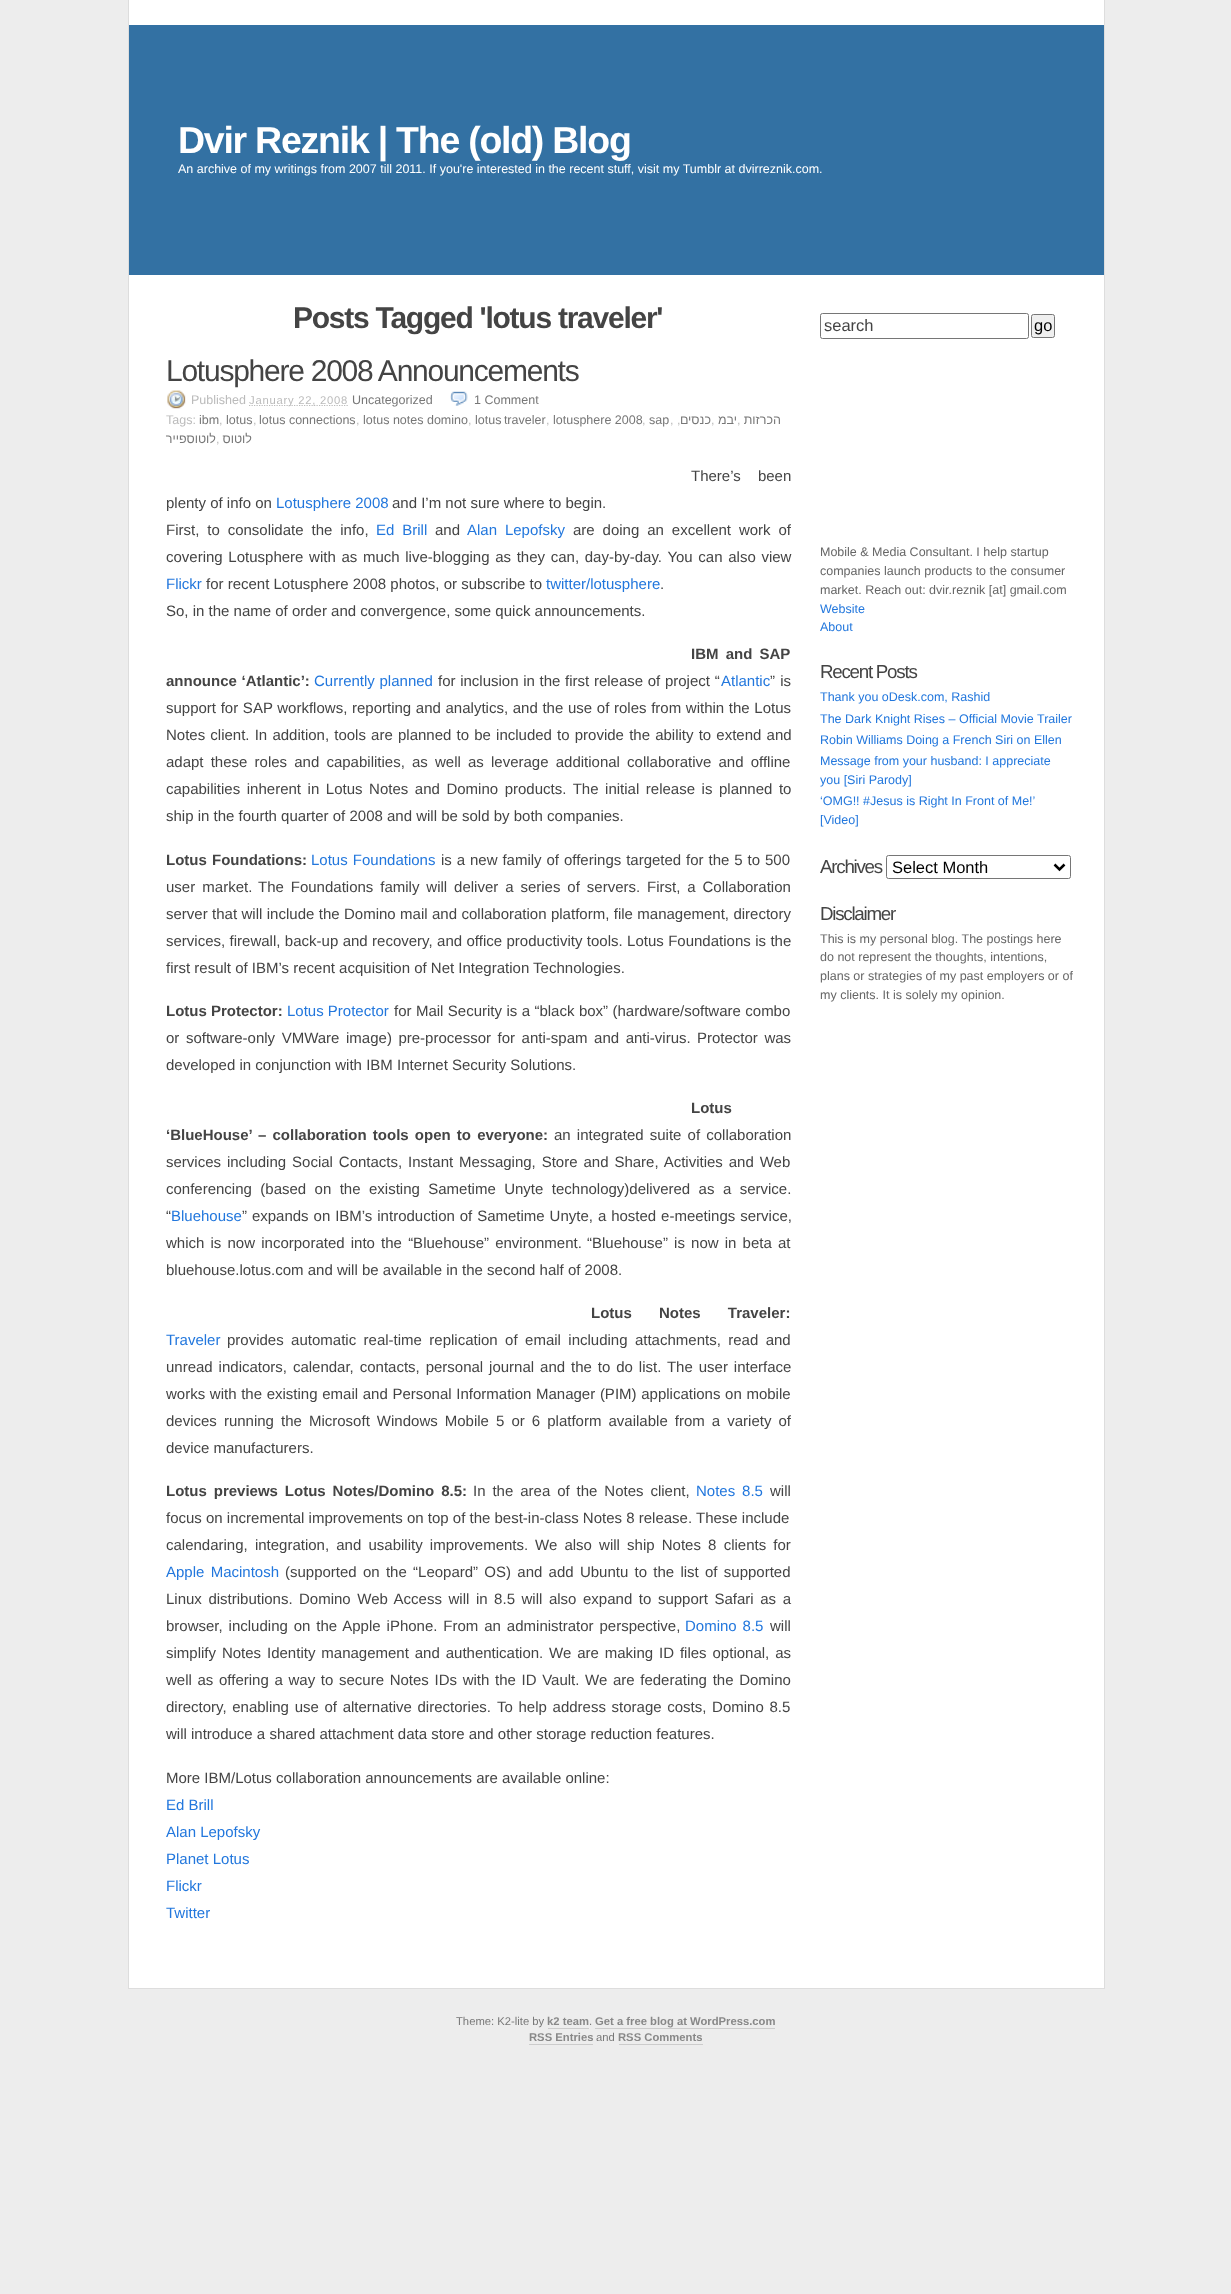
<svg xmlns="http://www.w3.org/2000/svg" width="1231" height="2294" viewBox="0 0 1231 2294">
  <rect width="100%" height="100%" fill="rgb(237,237,237)"/>
  <rect x="129" y="0" width="975" height="1988" fill="rgb(255,255,255)"/>
  <rect x="1104" y="0" width="1" height="1989" fill="rgb(221,221,221)"/>
  <rect x="128" y="1988" width="977" height="1" fill="rgb(221,221,221)"/>
  <rect x="128" y="0" width="1" height="1989" fill="rgb(221,221,221)"/>
  <rect x="129" y="25" width="975" height="250" fill="rgb(51,113,163)"/>
  <text x="178" y="153" font-family="Liberation Sans" font-size="37.5" font-weight="bold" letter-spacing="-1.25" fill="rgb(255,255,255)">Dvir Reznik | The (old) Blog</text>
  <text x="178" y="173" font-family="Liberation Sans" font-size="12.5" fill="rgb(255,255,255)">An archive of my writings from 2007 till 2011. If you're interested in the recent stuff, visit my Tumblr at dvirreznik.com.</text>
  <text x="293" y="328" font-family="Liberation Sans" font-size="30" font-weight="bold" letter-spacing="-1.25" fill="rgb(68,68,68)">Posts Tagged 'lotus traveler'</text>
  <text x="166" y="381" font-family="Liberation Sans" font-size="30" letter-spacing="-1.25" fill="rgb(68,68,68)">Lotusphere 2008 Announcements</text>
  <image x="167" y="390" width="19" height="19" href="pic1.png"/>
  <text x="191" y="404" font-family="Liberation Sans" font-size="12.5" fill="rgb(187,187,187)">Published</text>
  <path d="M249 405.5H348.5" fill="none" stroke="rgb(187,187,187)" stroke-width="1.2" stroke-dasharray="1.25 1.25"/>
  <text x="249" y="404" font-family="Liberation Sans" font-size="11.25" letter-spacing="0.75" fill="rgb(187,187,187)">January 22, 2008</text>
  <text x="352" y="404" font-family="Liberation Sans" font-size="12.5" fill="rgb(119,119,119)">Uncategorized</text>
  <image x="450" y="391" width="18" height="15" href="pic2.png"/>
  <text x="474" y="404" font-family="Liberation Sans" font-size="12.5" fill="rgb(119,119,119)">1 Comment</text>
  <text x="166" y="424" font-family="Liberation Sans" font-size="12.5" fill="rgb(187,187,187)">Tags:</text>
  <text x="199" y="424" font-family="Liberation Sans" font-size="12.5" fill="rgb(119,119,119)">ibm</text>
  <text x="219" y="424" font-family="Liberation Sans" font-size="12.5" fill="rgb(187,187,187)">,</text>
  <text x="226" y="424" font-family="Liberation Sans" font-size="12.5" fill="rgb(119,119,119)">lotus</text>
  <text x="253" y="424" font-family="Liberation Sans" font-size="12.5" fill="rgb(187,187,187)">,</text>
  <text x="259" y="424" font-family="Liberation Sans" font-size="12.5" fill="rgb(119,119,119)">lotus connections</text>
  <text x="356" y="424" font-family="Liberation Sans" font-size="12.5" fill="rgb(187,187,187)">,</text>
  <text x="363" y="424" font-family="Liberation Sans" font-size="12.5" fill="rgb(119,119,119)">lotus notes domino</text>
  <text x="468" y="424" font-family="Liberation Sans" font-size="12.5" fill="rgb(187,187,187)">,</text>
  <text x="475" y="424" word-spacing="-1" font-family="Liberation Sans" font-size="12.5" fill="rgb(119,119,119)">lotus traveler</text>
  <text x="546" y="424" font-family="Liberation Sans" font-size="12.5" fill="rgb(187,187,187)">,</text>
  <text x="553" y="424" font-family="Liberation Sans" font-size="12.5" fill="rgb(119,119,119)">lotusphere 2008</text>
  <text x="642" y="424" font-family="Liberation Sans" font-size="12.5" fill="rgb(187,187,187)">,</text>
  <text x="649" y="424" font-family="Liberation Sans" font-size="12.5" fill="rgb(119,119,119)">sap</text>
  <text x="670" y="424" font-family="Liberation Sans" font-size="12.5" fill="rgb(187,187,187)">, ,</text>
  <text x="711" y="424" font-family="Liberation Sans" font-size="12.5" direction="rtl" fill="rgb(119,119,119)">כנסים</text>
  <text x="711" y="424" font-family="Liberation Sans" font-size="12.5" fill="rgb(187,187,187)">,</text>
  <text x="737" y="424" font-family="Liberation Sans" font-size="12.5" direction="rtl" fill="rgb(119,119,119)">יבמ</text>
  <text x="737" y="424" font-family="Liberation Sans" font-size="12.5" fill="rgb(187,187,187)">,</text>
  <g font-family="Liberation Sans" font-size="12.5" direction="rtl" fill="rgb(119,119,119)">
    <text x="781" y="424">הכרזות</text>
    <text x="216" y="443">לוטוספייר</text>
  </g>
  <text x="216" y="443" font-family="Liberation Sans" font-size="12.5" fill="rgb(187,187,187)">,</text>
  <text x="252" y="443" font-family="Liberation Sans" font-size="12.5" direction="rtl" fill="rgb(119,119,119)">לוטוס</text>
  <g font-family="Liberation Sans" font-size="15" fill="rgb(68,68,68)">
    <text x="691" y="481" word-spacing="13">There’s been</text>
    <text x="166" y="508">plenty of info on</text>
  </g>
  <text x="276" y="508" font-family="Liberation Sans" font-size="15" fill="rgb(34,119,221)">Lotusphere 2008</text>
  <g font-family="Liberation Sans" font-size="15" fill="rgb(68,68,68)">
    <text x="392" y="508">and I’m not sure where to begin.</text>
    <text x="166" y="535" word-spacing="3.75">First, to consolidate the info,</text>
  </g>
  <text x="376" y="535" word-spacing="3.75" font-family="Liberation Sans" font-size="15" fill="rgb(34,119,221)">Ed Brill</text>
  <text x="435" y="535" font-family="Liberation Sans" font-size="15" fill="rgb(68,68,68)">and</text>
  <text x="467" y="535" word-spacing="3.75" font-family="Liberation Sans" font-size="15" fill="rgb(34,119,221)">Alan Lepofsky</text>
  <g font-family="Liberation Sans" font-size="15" fill="rgb(68,68,68)">
    <text x="573" y="535" word-spacing="3.75">are doing an excellent work of</text>
    <text x="166" y="562" word-spacing="1.5">covering Lotusphere with as much live-blogging as they can, day-by-day. You can also view</text>
  </g>
  <text x="166" y="589" font-family="Liberation Sans" font-size="15" fill="rgb(34,119,221)">Flickr</text>
  <text x="206" y="589" font-family="Liberation Sans" font-size="15" fill="rgb(68,68,68)">for recent Lotusphere 2008 photos, or subscribe to</text>
  <text x="546" y="589" font-family="Liberation Sans" font-size="15" fill="rgb(34,119,221)">twitter/lotusphere</text>
  <g font-family="Liberation Sans" font-size="15" fill="rgb(68,68,68)">
    <text x="660" y="589">.</text>
    <text x="166" y="616">So, in the name of order and convergence, some quick announcements.</text>
  </g>
  <g font-family="Liberation Sans" font-size="15" font-weight="bold" fill="rgb(68,68,68)">
    <text x="691" y="659" word-spacing="3">IBM and SAP</text>
    <text x="166" y="686" word-spacing="0.5">announce ‘Atlantic’:</text>
  </g>
  <text x="314" y="686" word-spacing="0.5" font-family="Liberation Sans" font-size="15" fill="rgb(34,119,221)">Currently planned</text>
  <text x="438" y="686" word-spacing="0.5" font-family="Liberation Sans" font-size="15" fill="rgb(68,68,68)">for inclusion in the first release of project “</text>
  <text x="721" y="686" font-family="Liberation Sans" font-size="15" fill="rgb(34,119,221)">Atlantic</text>
  <g font-family="Liberation Sans" font-size="15" fill="rgb(68,68,68)">
    <text x="770" y="686" word-spacing="1">” is</text>
    <text>
      <tspan x="166" y="713" word-spacing="0.5">support for SAP workflows, reporting and analytics, and the use of roles from within the Lotus</tspan>
      <tspan x="166" y="740" word-spacing="1">Notes client. In addition, tools are planned to be included to provide the ability to extend and</tspan>
      <tspan x="166" y="767" word-spacing="3">adapt these roles and capabilities, as well as leverage additional collaborative and offline</tspan>
      <tspan x="166" y="794" word-spacing="2.4">capabilities inherent in Lotus Notes and Domino products. The initial release is planned to</tspan>
      <tspan x="166" y="821">ship in the fourth quarter of 2008 and will be sold by both companies.</tspan>
    </text>
  </g>
  <text x="166" y="865" word-spacing="1" font-family="Liberation Sans" font-size="15" font-weight="bold" fill="rgb(68,68,68)">Lotus Foundations:</text>
  <text x="311" y="865" word-spacing="1" font-family="Liberation Sans" font-size="15" fill="rgb(34,119,221)">Lotus Foundations</text>
  <g font-family="Liberation Sans" font-size="15" fill="rgb(68,68,68)">
    <text x="441" y="865" word-spacing="0.75">is a new family of offerings targeted for the 5 to 500</text>
    <text x="166" y="892" word-spacing="3">user market.</text>
    <text x="258" y="892" word-spacing="2.75">The Foundations family will deliver a series of servers.</text>
    <text x="647" y="892" word-spacing="2.75">First, a Collaboration</text>
    <text>
      <tspan x="166" y="919" word-spacing="0.25">server that will include the Domino mail and collaboration platform, file management, directory</tspan>
      <tspan x="166" y="946" word-spacing="0.25">services, firewall, back-up and recovery, and office productivity tools. Lotus Foundations is the</tspan>
      <tspan x="166" y="973">first result of IBM’s recent acquisition of Net Integration Technologies.</tspan>
    </text>
  </g>
  <text x="166" y="1016" font-family="Liberation Sans" font-size="15" font-weight="bold" fill="rgb(68,68,68)">Lotus Protector:</text>
  <text x="287" y="1016" font-family="Liberation Sans" font-size="15" fill="rgb(34,119,221)">Lotus Protector</text>
  <g font-family="Liberation Sans" font-size="15" fill="rgb(68,68,68)">
    <text x="394" y="1016" word-spacing="0.25">for Mail Security is a “black box” (hardware/software combo</text>
    <text x="166" y="1043" word-spacing="2.4">or software-only VMWare image) pre-processor for anti-spam and anti-virus.</text>
    <text x="697" y="1043" word-spacing="2.4">Protector was</text>
    <text x="166" y="1070">developed in conjunction with IBM Internet Security Solutions.</text>
  </g>
  <g font-family="Liberation Sans" font-size="15" font-weight="bold" fill="rgb(68,68,68)">
    <text x="691" y="1113">Lotus</text>
    <text x="166" y="1140">‘BlueHouse’</text>
    <text x="258" y="1140" word-spacing="2">– collaboration tools open to everyone:</text>
  </g>
  <g font-family="Liberation Sans" font-size="15" fill="rgb(68,68,68)">
    <text x="554" y="1140" word-spacing="2">an integrated suite of collaboration</text>
    <text>
      <tspan x="166" y="1167" word-spacing="1.75">services including Social Contacts, Instant Messaging, Store and Share, Activities and Web</tspan>
      <tspan x="166" y="1194" word-spacing="4.25">conferencing (based on the existing Sametime Unyte technology)delivered as a service.</tspan>
      <tspan x="166" y="1221">“</tspan>
    </text>
  </g>
  <text x="171" y="1221" font-family="Liberation Sans" font-size="15" fill="rgb(34,119,221)">Bluehouse</text>
  <g font-family="Liberation Sans" font-size="15" fill="rgb(68,68,68)">
    <text x="242" y="1221" word-spacing="0.75">” expands on IBM’s introduction of Sametime Unyte, a hosted e-meetings service,</text>
    <text x="166" y="1248" word-spacing="2">which is now incorporated into the “Bluehouse” environment.</text>
    <text x="587" y="1248" word-spacing="2">“Bluehouse” is now in beta at</text>
    <text x="166" y="1275">bluehouse.lotus.com and will be available in the second half of 2008.</text>
  </g>
  <text x="591" y="1318" word-spacing="23" font-family="Liberation Sans" font-size="15" font-weight="bold" fill="rgb(68,68,68)">Lotus Notes Traveler:</text>
  <text x="166" y="1345" font-family="Liberation Sans" font-size="15" fill="rgb(34,119,221)">Traveler</text>
  <g font-family="Liberation Sans" font-size="15" fill="rgb(68,68,68)">
    <text x="227" y="1345" word-spacing="3.25">provides automatic real-time replication of email including attachments, read and</text>
    <text>
      <tspan x="166" y="1372" word-spacing="1.75">unread indicators, calendar, contacts, personal journal and the to do list. The user interface</tspan>
      <tspan x="166" y="1399" word-spacing="0.5">works with the existing email and Personal Information Manager (PIM) applications on mobile</tspan>
      <tspan x="166" y="1426" word-spacing="2.9">devices running the Microsoft Windows Mobile 5 or 6 platform available from a variety of</tspan>
      <tspan x="166" y="1453">device manufacturers.</tspan>
    </text>
  </g>
  <text x="166" y="1496" word-spacing="2.75" font-family="Liberation Sans" font-size="15" font-weight="bold" fill="rgb(68,68,68)">Lotus previews Lotus Notes/Domino 8.5:</text>
  <text x="473" y="1496" word-spacing="2.75" font-family="Liberation Sans" font-size="15" fill="rgb(68,68,68)">In the area of the Notes client,</text>
  <text x="696" y="1496" word-spacing="2.75" font-family="Liberation Sans" font-size="15" fill="rgb(34,119,221)">Notes 8.5</text>
  <g font-family="Liberation Sans" font-size="15" fill="rgb(68,68,68)">
    <text x="770" y="1496">will</text>
    <text>
      <tspan x="166" y="1523">focus on incremental improvements on top of the best-in-class Notes 8 release. These include</tspan>
      <tspan x="166" y="1550" word-spacing="3">calendaring, integration, and usability improvements.</tspan>
    </text>
    <text x="535" y="1550" word-spacing="3">We also will ship Notes 8 clients for</text>
  </g>
  <text x="166" y="1577" word-spacing="2.1" font-family="Liberation Sans" font-size="15" fill="rgb(34,119,221)">Apple Macintosh</text>
  <g font-family="Liberation Sans" font-size="15" fill="rgb(68,68,68)">
    <text x="285" y="1577" word-spacing="2.1">(supported on the “Leopard” OS) and add Ubuntu to the list of supported</text>
    <text x="166" y="1604" word-spacing="2.4">Linux distributions.</text>
    <text x="299" y="1604" word-spacing="2.4">Domino Web Access will in 8.5 will also expand to support Safari as a</text>
    <text x="166" y="1631" word-spacing="1.75">browser, including on the Apple iPhone. From an administrator perspective,</text>
  </g>
  <text x="685" y="1631" word-spacing="1.75" font-family="Liberation Sans" font-size="15" fill="rgb(34,119,221)">Domino 8.5</text>
  <g font-family="Liberation Sans" font-size="15" fill="rgb(68,68,68)">
    <text x="770" y="1631">will</text>
    <text x="166" y="1658" word-spacing="1.75">simplify Notes Identity management and authentication.</text>
    <text x="549" y="1658" word-spacing="1.75">We are making ID files optional, as</text>
    <text x="166" y="1685" word-spacing="1.5">well as offering a way to secure Notes IDs with the ID Vault.</text>
    <text x="585" y="1685" word-spacing="1.5">We are federating the Domino</text>
    <text x="166" y="1712" word-spacing="1.5">directory, enabling use of alternative directories.</text>
    <text x="497" y="1712" word-spacing="1.5">To help address storage costs, Domino 8.5</text>
    <text x="166" y="1739">will introduce a shared attachment data store and other storage reduction features.</text>
    <text x="166" y="1783">More IBM/Lotus collaboration announcements are available online:</text>
  </g>
  <g font-family="Liberation Sans" font-size="15" fill="rgb(34,119,221)">
    <text>
      <tspan x="166" y="1810">Ed Brill</tspan>
      <tspan x="166" y="1837">Alan Lepofsky</tspan>
      <tspan x="166" y="1864">Planet Lotus</tspan>
      <tspan x="166" y="1891">Flickr</tspan>
      <tspan x="166" y="1918">Twitter</tspan>
    </text>
  </g>
  <rect x="820.5" y="313.5" width="208" height="25" rx="2" fill="none" stroke="rgb(118,118,118)"/>
  <text x="824" y="331" font-family="Liberation Sans" font-size="16.5" fill="rgb(68,68,68)">search</text>
  <rect x="1031.5" y="314.5" width="23" height="23" rx="2" fill="rgb(239,239,239)" stroke="rgb(118,118,118)"/>
  <text x="1034" y="331" font-family="Liberation Sans" font-size="16.5" fill="rgb(0,0,0)">go</text>
  <g font-family="Liberation Sans" font-size="12.5" fill="rgb(102,102,102)">
    <text>
      <tspan x="820" y="556">Mobile &amp; Media Consultant. I help startup</tspan>
      <tspan x="820" y="575">companies launch products to the consumer</tspan>
      <tspan x="820" y="594">market. Reach out: dvir.reznik [at] gmail.com</tspan>
    </text>
  </g>
  <g font-family="Liberation Sans" font-size="12.5" fill="rgb(34,119,221)">
    <text>
      <tspan x="820" y="613">Website</tspan>
      <tspan x="820" y="631">About</tspan>
    </text>
  </g>
  <text x="820" y="678" font-family="Liberation Sans" font-size="18.75" letter-spacing="-1.25" fill="rgb(68,68,68)">Recent Posts</text>
  <g font-family="Liberation Sans" font-size="12.5" fill="rgb(34,119,221)">
    <text>
      <tspan x="820" y="701">Thank you oDesk.com, Rashid</tspan>
      <tspan x="820" y="723">The Dark Knight Rises – Official Movie Trailer</tspan>
      <tspan x="820" y="744">Robin Williams Doing a French Siri on Ellen</tspan>
      <tspan x="820" y="765">Message from your husband: I appreciate</tspan>
      <tspan x="820" y="784">you [Siri Parody]</tspan>
      <tspan x="820" y="805">‘OMG!! #Jesus is Right In Front of Me!’</tspan>
      <tspan x="820" y="824">[Video]</tspan>
    </text>
  </g>
  <text x="820" y="873" font-family="Liberation Sans" font-size="18.75" letter-spacing="-1.25" fill="rgb(68,68,68)">Archives</text>
  <rect x="886.5" y="855.5" width="184" height="23" rx="2" fill="none" stroke="rgb(118,118,118)"/>
  <path d="M1054.5 864.5L1059.5 869.5L1064.5 864.5" fill="none" stroke="rgb(0,0,0)" stroke-width="2.5"/>
  <text x="892" y="873" font-family="Liberation Sans" font-size="16.5" fill="rgb(0,0,0)">Select Month</text>
  <text x="820" y="920" font-family="Liberation Sans" font-size="18.75" letter-spacing="-1.25" fill="rgb(68,68,68)">Disclaimer</text>
  <g font-family="Liberation Sans" font-size="12.5" fill="rgb(102,102,102)">
    <text>
      <tspan x="820" y="943">This is my personal blog. The postings here</tspan>
      <tspan x="820" y="961">do not represent the thoughts, intentions,</tspan>
      <tspan x="820" y="980">plans or strategies of my past employers or of</tspan>
      <tspan x="820" y="999">my clients. It is solely my opinion.</tspan>
    </text>
  </g>
  <text x="456" y="2025" font-family="Liberation Sans" font-size="11.25" fill="rgb(119,119,119)">Theme: K2-lite by</text>
  <text x="547" y="2025" font-family="Liberation Sans" font-size="11.25" font-weight="bold" fill="rgb(136,136,136)">k2 team</text>
  <text x="589" y="2025" font-family="Liberation Sans" font-size="11.25" fill="rgb(119,119,119)">.</text>
  <rect x="548" y="2028" width="41" height="1" fill="rgb(204,204,204)"/>
  <rect x="595" y="2028" width="180" height="1" fill="rgb(204,204,204)"/>
  <g font-family="Liberation Sans" font-size="11.25" font-weight="bold" fill="rgb(136,136,136)">
    <text x="595" y="2025">Get a free blog at WordPress.com</text>
    <text x="529" y="2041">RSS Entries</text>
  </g>
  <rect x="529" y="2044" width="64" height="1" fill="rgb(204,204,204)"/>
  <text x="596" y="2041" font-family="Liberation Sans" font-size="11.25" fill="rgb(119,119,119)">and</text>
  <text x="618" y="2041" font-family="Liberation Sans" font-size="11.25" font-weight="bold" fill="rgb(136,136,136)">RSS Comments</text>
  <rect x="619" y="2044" width="84" height="1" fill="rgb(204,204,204)"/>
</svg>
